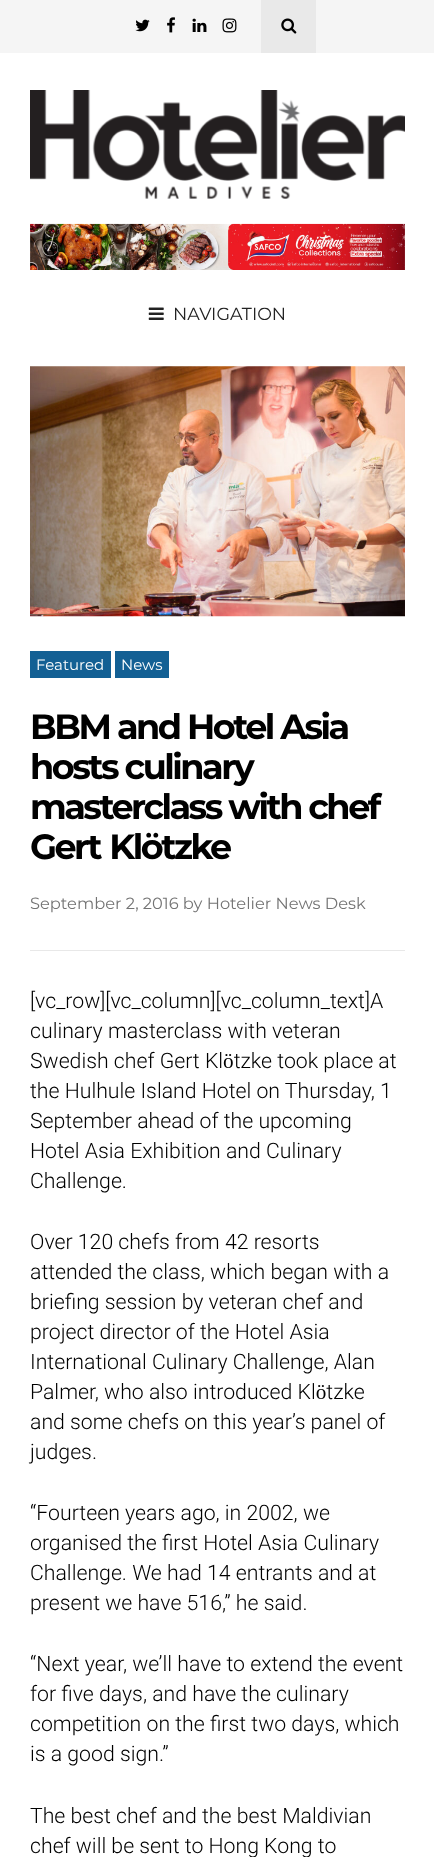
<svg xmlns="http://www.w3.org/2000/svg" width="434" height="1857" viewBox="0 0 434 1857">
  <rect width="100%" height="100%" fill="rgb(255,255,255)"/>
  <rect x="0" y="0" width="434" height="53" fill="rgb(245,245,245)"/>
  <image x="135" y="19" width="15" height="13" href="pic1.png"/>
  <image x="167" y="17" width="8" height="16" href="pic2.png"/>
  <image x="192" y="18" width="15" height="14" href="pic3.png"/>
  <image x="222" y="18" width="15" height="15" href="pic4.png"/>
  <rect x="261" y="0" width="55" height="53" fill="rgb(233,233,233)"/>
  <image x="281" y="18" width="16" height="16" href="pic5.png"/>
  <image x="30" y="90" width="375" height="109" href="pic6.png"/>
  <image x="30" y="223" width="375" height="47" href="pic7.png"/>
  <image x="148" y="307" width="16" height="13" href="pic8.png"/>
  <text x="173" y="320" font-family="Montserrat" font-size="17.5" fill="rgb(34,34,34)">NAVIGATION</text>
  <rect x="30" y="950" width="375" height="1" fill="rgb(232,232,232)"/>
  <image x="30" y="366" width="375" height="251" href="pic9.png"/>
  <rect x="30" y="651" width="81" height="27" fill="rgb(19,96,148)"/>
  <text x="36" y="670" font-family="Montserrat" font-size="15" fill="rgb(255,255,255)">Featured</text>
  <rect x="115" y="651" width="54" height="27" fill="rgb(19,96,148)"/>
  <text x="121" y="670" font-family="Montserrat" font-size="15" fill="rgb(255,255,255)">News</text>
  <g font-family="Montserrat" font-size="35" font-weight="bold" letter-spacing="-2.5" fill="rgb(0,0,0)">
    <text>
      <tspan x="30" y="739">BBM and Hotel Asia</tspan>
      <tspan x="30" y="779">hosts culinary</tspan>
      <tspan x="30" y="819">masterclass with chef</tspan>
      <tspan x="30" y="859" word-spacing="2">Gert Klötzke</tspan>
    </text>
  </g>
  <text x="30" y="909" font-family="Montserrat" font-size="16.25" fill="rgb(115,115,115)">September 2, 2016 by Hotelier News Desk</text>
  <g font-family="Roboto" font-size="21.25" font-weight="300" fill="rgb(0,0,0)">
    <text>
      <tspan x="30" y="1008">[vc_row][vc_column][vc_column_text]A</tspan>
      <tspan x="30" y="1038">culinary masterclass with veteran</tspan>
      <tspan x="30" y="1068">Swedish chef Gert Klötzke took place at</tspan>
      <tspan x="30" y="1098">the Hulhule Island Hotel on Thursday, 1</tspan>
      <tspan x="30" y="1128">September ahead of the upcoming</tspan>
      <tspan x="30" y="1158">Hotel Asia Exhibition and Culinary</tspan>
      <tspan x="30" y="1188">Challenge.</tspan>
    </text>
    <text>
      <tspan x="30" y="1249">Over 120 chefs from 42 resorts</tspan>
      <tspan x="30" y="1279">attended the class, which began with a</tspan>
      <tspan x="30" y="1309">briefing session by veteran chef and</tspan>
      <tspan x="30" y="1339">project director of the Hotel Asia</tspan>
      <tspan x="30" y="1369">International Culinary Challenge, Alan</tspan>
      <tspan x="30" y="1399">Palmer, who also introduced Klötzke</tspan>
      <tspan x="30" y="1429">and some chefs on this year’s panel of</tspan>
      <tspan x="30" y="1459">judges.</tspan>
    </text>
    <text>
      <tspan x="30" y="1520">“Fourteen years ago, in 2002, we</tspan>
      <tspan x="30" y="1550">organised the first Hotel Asia Culinary</tspan>
      <tspan x="30" y="1580">Challenge. We had 14 entrants and at</tspan>
      <tspan x="30" y="1610">present we have 516,” he said.</tspan>
    </text>
    <text>
      <tspan x="30" y="1671">“Next year, we’ll have to extend the event</tspan>
      <tspan x="30" y="1701">for five days, and have the culinary</tspan>
      <tspan x="30" y="1731">competition on the first two days, which</tspan>
      <tspan x="30" y="1761">is a good sign.”</tspan>
    </text>
    <text>
      <tspan x="30" y="1823">The best chef and the best Maldivian</tspan>
      <tspan x="30" y="1853">chef will be sent to Hong Kong to</tspan>
    </text>
  </g>
</svg>
